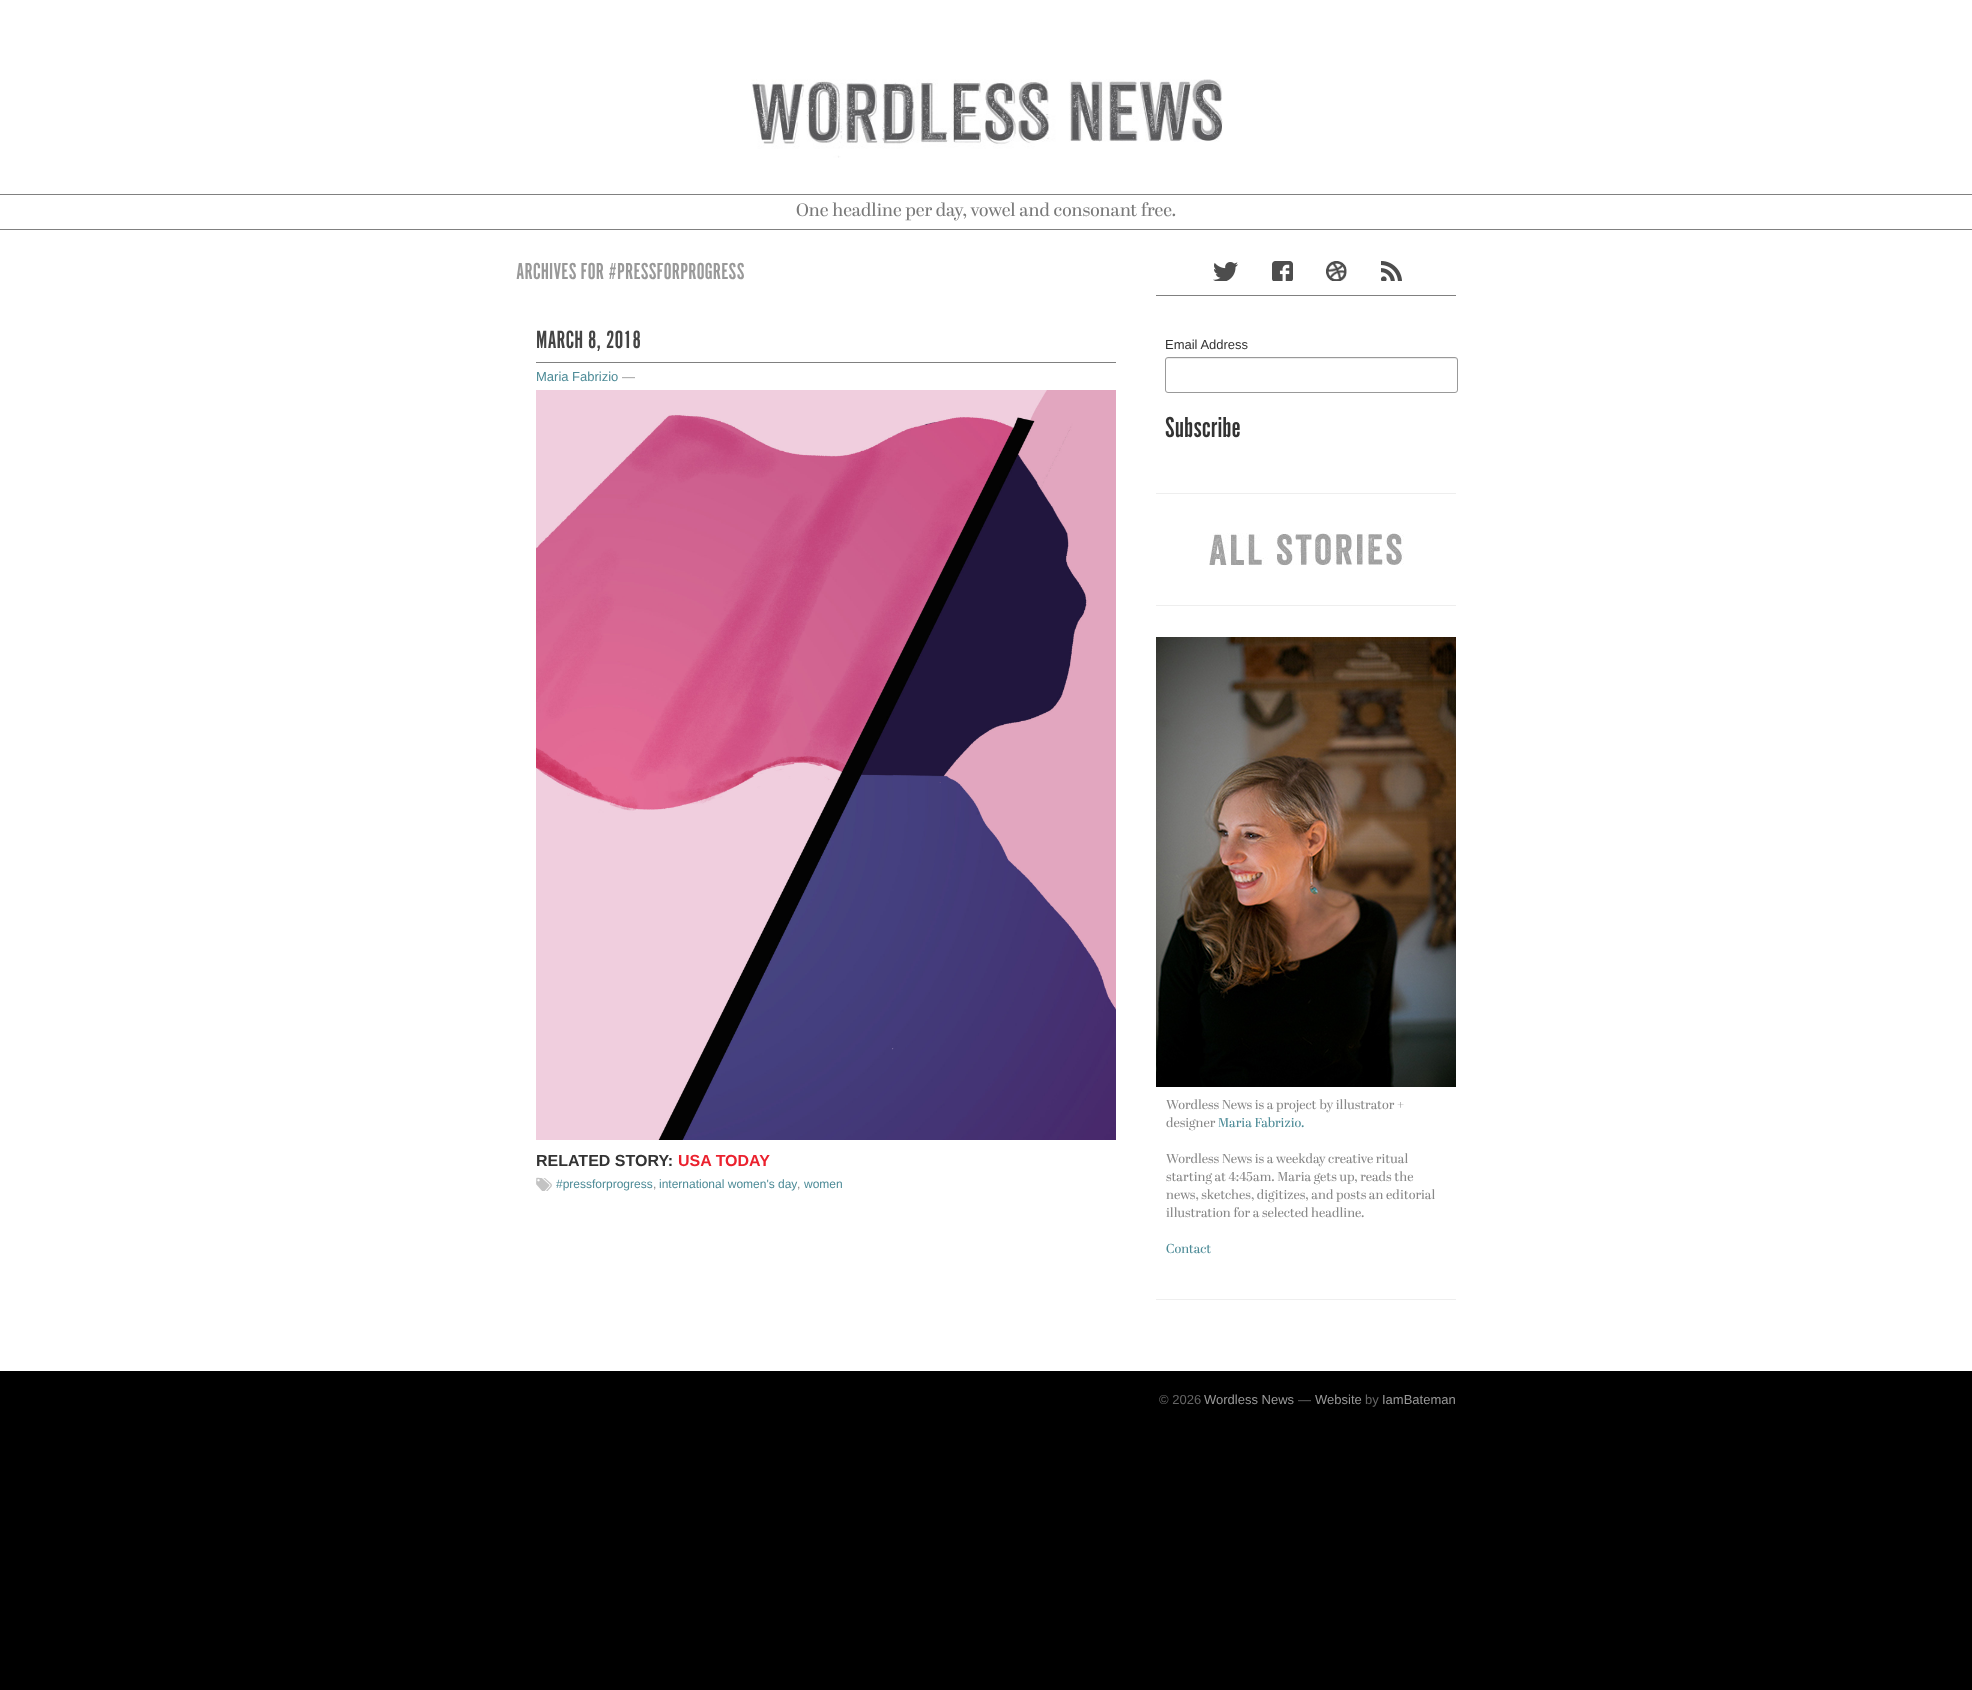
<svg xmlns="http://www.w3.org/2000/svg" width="1972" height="1690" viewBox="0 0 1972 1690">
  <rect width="100%" height="100%" fill="rgb(0,0,0)"/>
  <rect x="0" y="0" width="1972" height="1371" fill="rgb(255,255,255)"/>
  <image x="751" y="79" width="472" height="79" href="pic1.png"/>
  <rect x="0" y="194" width="1972" height="1" fill="rgb(128,128,128)"/>
  <rect x="0" y="229" width="1972" height="1" fill="rgb(128,128,128)"/>
  <text x="796" y="216" font-family="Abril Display" font-size="18" fill="rgb(122,122,122)">One headline per day, vowel and consonant free.</text>
  <text x="516" y="279" font-family="'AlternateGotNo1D'" font-size="24" fill="rgb(153,153,153)">ARCHIVES FOR #PRESSFORPROGRESS</text>
  <rect x="536" y="362" width="580" height="1" fill="rgb(128,128,128)"/>
  <text x="536" y="348" font-family="'AlternateGotNo1D'" font-size="26" fill="rgb(68,68,68)">MARCH 8, 2018</text>
  <text x="536" y="381" font-family="Liberation Sans" font-size="13" fill="rgb(77,139,151)">Maria Fabrizio</text>
  <text x="622" y="381" font-family="Liberation Sans" font-size="13" fill="rgb(153,153,153)">—</text>
  <image x="536" y="390" width="580" height="750" href="pic2.png"/>
  <text x="536" y="1166" font-family="Liberation Sans" font-size="16" font-weight="bold" fill="rgb(51,51,51)">RELATED STORY:</text>
  <text x="678" y="1166" font-family="Liberation Sans" font-size="16" font-weight="bold" fill="rgb(235,33,46)">USA TODAY</text>
  <image x="536" y="1177" width="16" height="14" href="pic3.png"/>
  <text x="556" y="1188" font-family="Liberation Sans" font-size="12" fill="rgb(77,139,151)">#pressforprogress</text>
  <text x="653" y="1188" font-family="Liberation Sans" font-size="12" fill="rgb(136,136,136)">,</text>
  <text x="659" y="1188" font-family="Liberation Sans" font-size="12" fill="rgb(77,139,151)">international women's day</text>
  <text x="797" y="1188" font-family="Liberation Sans" font-size="12" fill="rgb(136,136,136)">,</text>
  <text x="804" y="1188" font-family="Liberation Sans" font-size="12" fill="rgb(77,139,151)">women</text>
  <rect x="1156" y="295" width="300" height="1" fill="rgb(128,128,128)"/>
  <image x="1213" y="262" width="25" height="19" href="pic4.png"/>
  <image x="1272" y="261" width="21" height="20" href="pic5.png"/>
  <image x="1326" y="261" width="21" height="20" href="pic6.png"/>
  <image x="1381" y="261" width="21" height="20" href="pic7.png"/>
  <text x="1165" y="349" font-family="Liberation Sans" font-size="13" fill="rgb(51,51,51)">Email Address</text>
  <path d="M1168 359H1455C1456 359 1457 360 1457 361C1457 360 1457 358 1455 358H1167L1166 361C1166 360 1167 359 1168 359Z" fill="rgb(236,236,236)"/>
  <rect x="1165.5" y="357.5" width="292" height="35" rx="2.5" fill="none" stroke="rgb(153,153,153)"/>
  <text x="1165" y="437" font-family="'AlternateGotNo1D'" font-size="30" fill="rgb(51,51,51)">Subscribe</text>
  <rect x="1156" y="493" width="300" height="1" fill="rgb(238,238,238)"/>
  <image x="1209" y="533" width="195" height="33" href="pic8.png"/>
  <rect x="1156" y="605" width="300" height="1" fill="rgb(238,238,238)"/>
  <image x="1156" y="637" width="300" height="450" href="pic9.png"/>
  <g font-family="Abril Display" font-size="13" fill="rgb(136,136,136)">
    <text>
      <tspan x="1166" y="1109">Wordless News is a project by illustrator +</tspan>
      <tspan x="1166" y="1127">designer</tspan>
    </text>
  </g>
  <text x="1218" y="1127" font-family="Abril Display" font-size="13" fill="rgb(77,139,151)">Maria Fabrizio.</text>
  <g font-family="Abril Display" font-size="13" fill="rgb(136,136,136)">
    <text>
      <tspan x="1166" y="1163">Wordless News is a weekday creative ritual</tspan>
      <tspan x="1166" y="1181">starting at 4:45am. Maria gets up, reads the</tspan>
      <tspan x="1166" y="1199">news, sketches, digitizes, and posts an editorial</tspan>
      <tspan x="1166" y="1217">illustration for a selected headline.</tspan>
    </text>
  </g>
  <text x="1166" y="1253" font-family="Abril Display" font-size="13" fill="rgb(77,139,151)">Contact</text>
  <rect x="1156" y="1299" width="300" height="1" fill="rgb(238,238,238)"/>
  <text x="1159" y="1404" font-family="Liberation Sans" font-size="13" fill="rgb(102,102,102)">© 2026</text>
  <text x="1204" y="1404" font-family="Liberation Sans" font-size="13" fill="rgb(153,153,153)">Wordless News</text>
  <text x="1298" y="1404" font-family="Liberation Sans" font-size="13" fill="rgb(102,102,102)">—</text>
  <text x="1315" y="1404" font-family="Liberation Sans" font-size="13" fill="rgb(153,153,153)">Website</text>
  <text x="1365" y="1404" font-family="Liberation Sans" font-size="13" fill="rgb(102,102,102)">by</text>
  <text x="1382" y="1404" font-family="Liberation Sans" font-size="13" fill="rgb(153,153,153)">IamBateman</text>
</svg>
